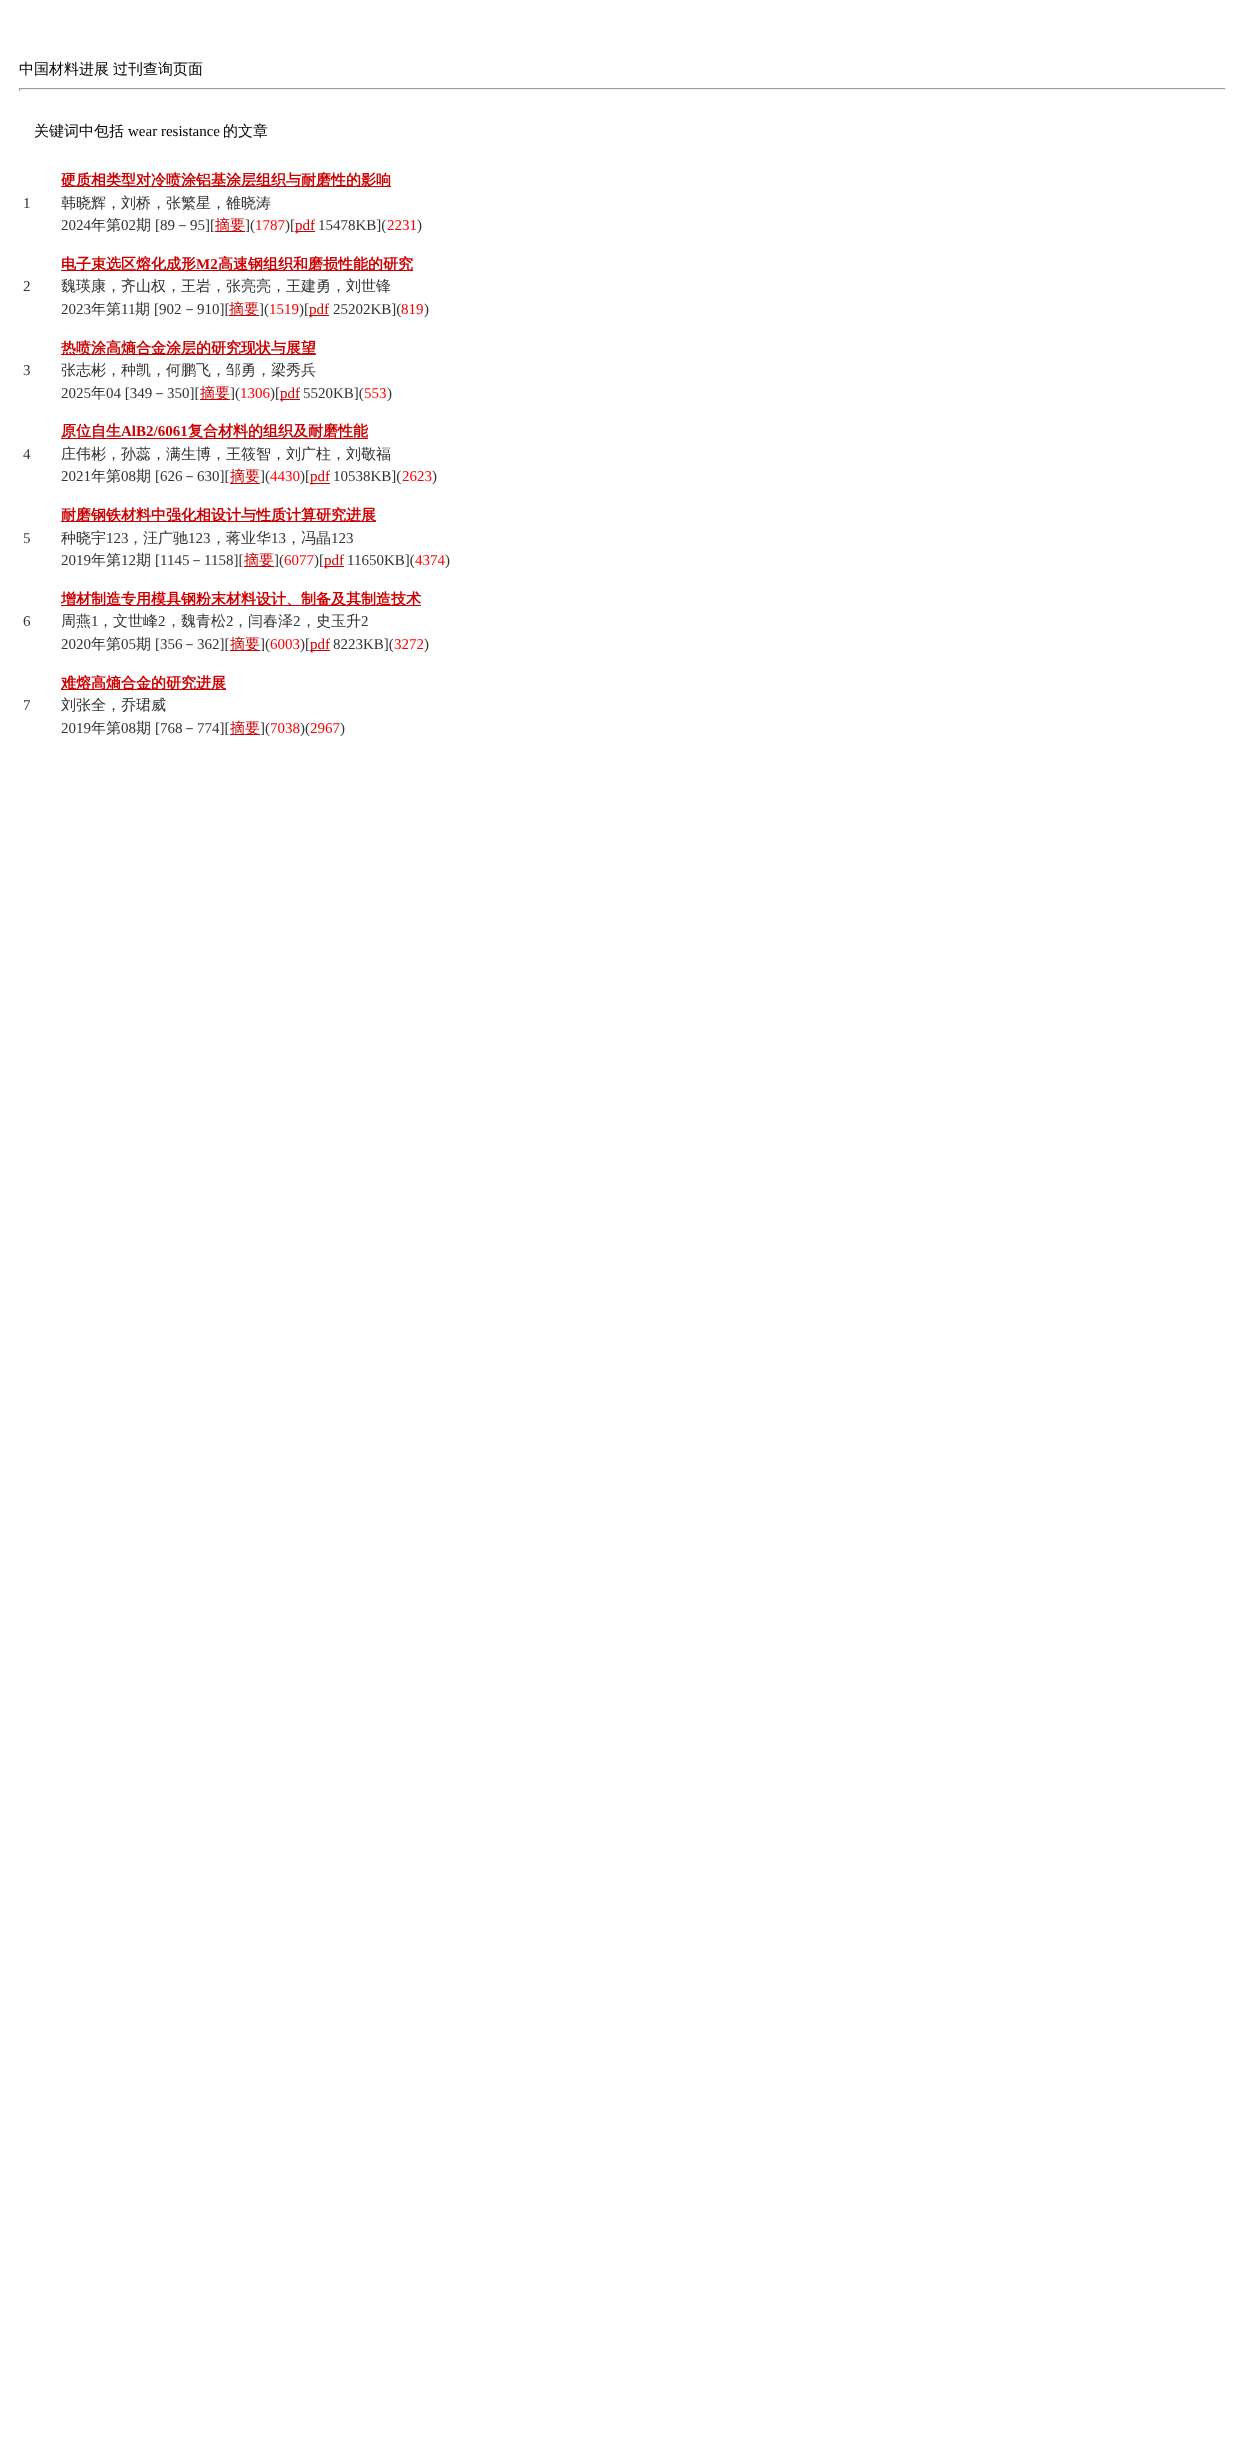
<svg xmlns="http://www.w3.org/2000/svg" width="1244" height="2464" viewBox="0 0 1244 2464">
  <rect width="100%" height="100%" fill="rgb(255,255,255)"/>
  <g font-family="WenQuanYi Zen Hei" font-size="15" font-weight="500" fill="rgb(0,0,0)">
    <text x="19" y="74">中国材料进展</text>
    <text x="113" y="74">过刊查询页面</text>
  </g>
  <rect x="19" y="88" width="1207" height="1" fill="rgb(159,159,159)"/>
  <rect x="1225" y="88" width="1" height="3" fill="rgb(238,238,238)"/>
  <rect x="19" y="89" width="1207" height="1" fill="rgb(238,238,238)"/>
  <rect x="19" y="88" width="1" height="3" fill="rgb(159,159,159)"/>
  <text x="34" y="136" font-family="WenQuanYi Zen Hei" font-size="15" font-weight="500" fill="rgb(0,0,0)">关键词中包括</text>
  <text x="128" y="136" font-family="Liberation Serif" font-size="15" fill="rgb(0,0,0)">wear resistance</text>
  <text x="223" y="136" font-family="WenQuanYi Zen Hei" font-size="15" font-weight="500" fill="rgb(0,0,0)">的文章</text>
  <text x="23" y="208" font-family="Liberation Serif" font-size="15" fill="rgb(51,51,51)">1</text>
  <rect x="61" y="186" width="330" height="1" fill="rgb(204,0,0)"/>
  <text x="61" y="185" font-family="WenQuanYi Zen Hei" font-size="15" font-weight="bold" fill="rgb(204,0,0)">硬质相类型对冷喷涂铝基涂层组织与耐磨性的影响</text>
  <text x="61" y="208" font-family="WenQuanYi Zen Hei" font-size="15" font-weight="500" fill="rgb(51,51,51)">韩晓辉，刘桥，张繁星，雒晓涛</text>
  <text x="61" y="230" font-family="Liberation Serif" font-size="15" fill="rgb(51,51,51)">2024</text>
  <text x="91" y="230" font-family="WenQuanYi Zen Hei" font-size="15" font-weight="500" fill="rgb(51,51,51)">年第</text>
  <text x="121" y="230" font-family="Liberation Serif" font-size="15" fill="rgb(51,51,51)">02</text>
  <text x="136" y="230" font-family="WenQuanYi Zen Hei" font-size="15" font-weight="500" fill="rgb(51,51,51)">期</text>
  <text x="155" y="230" font-family="Liberation Serif" font-size="15" fill="rgb(51,51,51)">[89</text>
  <text x="175" y="230" font-family="WenQuanYi Zen Hei" font-size="15" font-weight="500" fill="rgb(51,51,51)">－</text>
  <text x="190" y="230" font-family="Liberation Serif" font-size="15" fill="rgb(51,51,51)">95][</text>
  <rect x="215" y="231" width="30" height="1" fill="rgb(204,0,0)"/>
  <text x="215" y="230" font-family="WenQuanYi Zen Hei" font-size="15" font-weight="500" fill="rgb(204,0,0)">摘要</text>
  <text x="245" y="230" font-family="Liberation Serif" font-size="15" fill="rgb(51,51,51)">](</text>
  <text x="255" y="230" font-family="Liberation Serif" font-size="15" fill="rgb(255,0,0)">1787</text>
  <text x="285" y="230" font-family="Liberation Serif" font-size="15" fill="rgb(51,51,51)">)[</text>
  <rect x="295" y="231" width="20" height="1" fill="rgb(204,0,0)"/>
  <text x="295" y="230" font-family="Liberation Serif" font-size="15" fill="rgb(204,0,0)">pdf</text>
  <text x="318" y="230" font-family="Liberation Serif" font-size="15" fill="rgb(51,51,51)">15478KB](</text>
  <text x="387" y="230" font-family="Liberation Serif" font-size="15" fill="rgb(255,0,0)">2231</text>
  <g font-family="Liberation Serif" font-size="15" fill="rgb(51,51,51)">
    <text x="417" y="230">)</text>
    <text x="23" y="291">2</text>
  </g>
  <rect x="61" y="270" width="352" height="1" fill="rgb(204,0,0)"/>
  <text x="61" y="269" font-family="WenQuanYi Zen Hei" font-size="15" font-weight="bold" fill="rgb(204,0,0)">电子束选区熔化成形</text>
  <text x="196" y="269" font-family="Liberation Serif" font-size="15" font-weight="bold" fill="rgb(204,0,0)">M2</text>
  <text x="218" y="269" font-family="WenQuanYi Zen Hei" font-size="15" font-weight="bold" fill="rgb(204,0,0)">高速钢组织和磨损性能的研究</text>
  <text x="61" y="291" font-family="WenQuanYi Zen Hei" font-size="15" font-weight="500" fill="rgb(51,51,51)">魏瑛康，齐山权，王岩，张亮亮，王建勇，刘世锋</text>
  <text x="61" y="314" font-family="Liberation Serif" font-size="15" fill="rgb(51,51,51)">2023</text>
  <text x="91" y="314" font-family="WenQuanYi Zen Hei" font-size="15" font-weight="500" fill="rgb(51,51,51)">年第</text>
  <text x="121" y="314" font-family="Liberation Serif" font-size="15" fill="rgb(51,51,51)">11</text>
  <text x="135" y="314" font-family="WenQuanYi Zen Hei" font-size="15" font-weight="500" fill="rgb(51,51,51)">期</text>
  <text x="154" y="314" font-family="Liberation Serif" font-size="15" fill="rgb(51,51,51)">[902</text>
  <text x="182" y="314" font-family="WenQuanYi Zen Hei" font-size="15" font-weight="500" fill="rgb(51,51,51)">－</text>
  <text x="197" y="314" font-family="Liberation Serif" font-size="15" fill="rgb(51,51,51)">910][</text>
  <rect x="229" y="315" width="30" height="1" fill="rgb(204,0,0)"/>
  <text x="229" y="314" font-family="WenQuanYi Zen Hei" font-size="15" font-weight="500" fill="rgb(204,0,0)">摘要</text>
  <text x="259" y="314" font-family="Liberation Serif" font-size="15" fill="rgb(51,51,51)">](</text>
  <text x="269" y="314" font-family="Liberation Serif" font-size="15" fill="rgb(255,0,0)">1519</text>
  <text x="299" y="314" font-family="Liberation Serif" font-size="15" fill="rgb(51,51,51)">)[</text>
  <rect x="309" y="315" width="20" height="1" fill="rgb(204,0,0)"/>
  <text x="309" y="314" font-family="Liberation Serif" font-size="15" fill="rgb(204,0,0)">pdf</text>
  <text x="333" y="314" font-family="Liberation Serif" font-size="15" fill="rgb(51,51,51)">25202KB](</text>
  <text x="401" y="314" font-family="Liberation Serif" font-size="15" fill="rgb(255,0,0)">819</text>
  <g font-family="Liberation Serif" font-size="15" fill="rgb(51,51,51)">
    <text x="424" y="314">)</text>
    <text x="23" y="375">3</text>
  </g>
  <rect x="61" y="354" width="255" height="1" fill="rgb(204,0,0)"/>
  <text x="61" y="353" font-family="WenQuanYi Zen Hei" font-size="15" font-weight="bold" fill="rgb(204,0,0)">热喷涂高熵合金涂层的研究现状与展望</text>
  <text x="61" y="375" font-family="WenQuanYi Zen Hei" font-size="15" font-weight="500" fill="rgb(51,51,51)">张志彬，种凯，何鹏飞，邹勇，梁秀兵</text>
  <text x="61" y="398" font-family="Liberation Serif" font-size="15" fill="rgb(51,51,51)">2025</text>
  <text x="91" y="398" font-family="WenQuanYi Zen Hei" font-size="15" font-weight="500" fill="rgb(51,51,51)">年</text>
  <text x="106" y="398" font-family="Liberation Serif" font-size="15" fill="rgb(51,51,51)">04 [349</text>
  <text x="152" y="398" font-family="WenQuanYi Zen Hei" font-size="15" font-weight="500" fill="rgb(51,51,51)">－</text>
  <text x="167" y="398" font-family="Liberation Serif" font-size="15" fill="rgb(51,51,51)">350][</text>
  <rect x="200" y="399" width="30" height="1" fill="rgb(204,0,0)"/>
  <text x="200" y="398" font-family="WenQuanYi Zen Hei" font-size="15" font-weight="500" fill="rgb(204,0,0)">摘要</text>
  <text x="230" y="398" font-family="Liberation Serif" font-size="15" fill="rgb(51,51,51)">](</text>
  <text x="240" y="398" font-family="Liberation Serif" font-size="15" fill="rgb(255,0,0)">1306</text>
  <text x="270" y="398" font-family="Liberation Serif" font-size="15" fill="rgb(51,51,51)">)[</text>
  <rect x="280" y="399" width="20" height="1" fill="rgb(204,0,0)"/>
  <text x="280" y="398" font-family="Liberation Serif" font-size="15" fill="rgb(204,0,0)">pdf</text>
  <text x="303" y="398" font-family="Liberation Serif" font-size="15" fill="rgb(51,51,51)">5520KB](</text>
  <text x="364" y="398" font-family="Liberation Serif" font-size="15" fill="rgb(255,0,0)">553</text>
  <g font-family="Liberation Serif" font-size="15" fill="rgb(51,51,51)">
    <text x="387" y="398">)</text>
    <text x="23" y="459">4</text>
  </g>
  <text x="61" y="436" font-family="WenQuanYi Zen Hei" font-size="15" font-weight="bold" fill="rgb(204,0,0)">原位自生</text>
  <text x="121" y="436" font-family="Liberation Serif" font-size="15" font-weight="bold" fill="rgb(204,0,0)">AlB2/6061</text>
  <rect x="61" y="438" width="307" height="1" fill="rgb(204,0,0)"/>
  <text x="188" y="436" font-family="WenQuanYi Zen Hei" font-size="15" font-weight="bold" fill="rgb(204,0,0)">复合材料的组织及耐磨性能</text>
  <text x="61" y="459" font-family="WenQuanYi Zen Hei" font-size="15" font-weight="500" fill="rgb(51,51,51)">庄伟彬，孙蕊，满生博，王筱智，刘广柱，刘敬福</text>
  <text x="61" y="481" font-family="Liberation Serif" font-size="15" fill="rgb(51,51,51)">2021</text>
  <text x="91" y="481" font-family="WenQuanYi Zen Hei" font-size="15" font-weight="500" fill="rgb(51,51,51)">年第</text>
  <text x="121" y="481" font-family="Liberation Serif" font-size="15" fill="rgb(51,51,51)">08</text>
  <text x="136" y="481" font-family="WenQuanYi Zen Hei" font-size="15" font-weight="500" fill="rgb(51,51,51)">期</text>
  <text x="155" y="481" font-family="Liberation Serif" font-size="15" fill="rgb(51,51,51)">[626</text>
  <text x="182" y="481" font-family="WenQuanYi Zen Hei" font-size="15" font-weight="500" fill="rgb(51,51,51)">－</text>
  <text x="197" y="481" font-family="Liberation Serif" font-size="15" fill="rgb(51,51,51)">630][</text>
  <rect x="230" y="483" width="30" height="1" fill="rgb(204,0,0)"/>
  <text x="230" y="481" font-family="WenQuanYi Zen Hei" font-size="15" font-weight="500" fill="rgb(204,0,0)">摘要</text>
  <text x="260" y="481" font-family="Liberation Serif" font-size="15" fill="rgb(51,51,51)">](</text>
  <text x="270" y="481" font-family="Liberation Serif" font-size="15" fill="rgb(255,0,0)">4430</text>
  <text x="300" y="481" font-family="Liberation Serif" font-size="15" fill="rgb(51,51,51)">)[</text>
  <rect x="310" y="483" width="20" height="1" fill="rgb(204,0,0)"/>
  <text x="310" y="481" font-family="Liberation Serif" font-size="15" fill="rgb(204,0,0)">pdf</text>
  <text x="333" y="481" font-family="Liberation Serif" font-size="15" fill="rgb(51,51,51)">10538KB](</text>
  <text x="402" y="481" font-family="Liberation Serif" font-size="15" fill="rgb(255,0,0)">2623</text>
  <g font-family="Liberation Serif" font-size="15" fill="rgb(51,51,51)">
    <text x="432" y="481">)</text>
    <text x="23" y="543">5</text>
  </g>
  <rect x="61" y="521" width="315" height="1" fill="rgb(204,0,0)"/>
  <text x="61" y="520" font-family="WenQuanYi Zen Hei" font-size="15" font-weight="bold" fill="rgb(204,0,0)">耐磨钢铁材料中强化相设计与性质计算研究进展</text>
  <text x="61" y="543" font-family="WenQuanYi Zen Hei" font-size="15" font-weight="500" fill="rgb(51,51,51)">种晓宇</text>
  <text x="106" y="543" font-family="Liberation Serif" font-size="15" fill="rgb(51,51,51)">123</text>
  <text x="128" y="543" font-family="WenQuanYi Zen Hei" font-size="15" font-weight="500" fill="rgb(51,51,51)">，汪广驰</text>
  <text x="188" y="543" font-family="Liberation Serif" font-size="15" fill="rgb(51,51,51)">123</text>
  <text x="211" y="543" font-family="WenQuanYi Zen Hei" font-size="15" font-weight="500" fill="rgb(51,51,51)">，蒋业华</text>
  <text x="271" y="543" font-family="Liberation Serif" font-size="15" fill="rgb(51,51,51)">13</text>
  <text x="286" y="543" font-family="WenQuanYi Zen Hei" font-size="15" font-weight="500" fill="rgb(51,51,51)">，冯晶</text>
  <g font-family="Liberation Serif" font-size="15" fill="rgb(51,51,51)">
    <text x="331" y="543">123</text>
    <text x="61" y="565">2019</text>
  </g>
  <text x="91" y="565" font-family="WenQuanYi Zen Hei" font-size="15" font-weight="500" fill="rgb(51,51,51)">年第</text>
  <text x="121" y="565" font-family="Liberation Serif" font-size="15" fill="rgb(51,51,51)">12</text>
  <text x="136" y="565" font-family="WenQuanYi Zen Hei" font-size="15" font-weight="500" fill="rgb(51,51,51)">期</text>
  <text x="155" y="565" font-family="Liberation Serif" font-size="15" fill="rgb(51,51,51)">[1145</text>
  <text x="189" y="565" font-family="WenQuanYi Zen Hei" font-size="15" font-weight="500" fill="rgb(51,51,51)">－</text>
  <text x="204" y="565" font-family="Liberation Serif" font-size="15" fill="rgb(51,51,51)">1158][</text>
  <rect x="244" y="566" width="30" height="1" fill="rgb(204,0,0)"/>
  <text x="244" y="565" font-family="WenQuanYi Zen Hei" font-size="15" font-weight="500" fill="rgb(204,0,0)">摘要</text>
  <text x="274" y="565" font-family="Liberation Serif" font-size="15" fill="rgb(51,51,51)">](</text>
  <text x="284" y="565" font-family="Liberation Serif" font-size="15" fill="rgb(255,0,0)">6077</text>
  <text x="314" y="565" font-family="Liberation Serif" font-size="15" fill="rgb(51,51,51)">)[</text>
  <rect x="324" y="566" width="20" height="1" fill="rgb(204,0,0)"/>
  <text x="324" y="565" font-family="Liberation Serif" font-size="15" fill="rgb(204,0,0)">pdf</text>
  <text x="347" y="565" font-family="Liberation Serif" font-size="15" fill="rgb(51,51,51)">11650KB](</text>
  <text x="415" y="565" font-family="Liberation Serif" font-size="15" fill="rgb(255,0,0)">4374</text>
  <g font-family="Liberation Serif" font-size="15" fill="rgb(51,51,51)">
    <text x="445" y="565">)</text>
    <text x="23" y="626">6</text>
  </g>
  <rect x="61" y="605" width="360" height="1" fill="rgb(204,0,0)"/>
  <text x="61" y="604" font-family="WenQuanYi Zen Hei" font-size="15" font-weight="bold" fill="rgb(204,0,0)">增材制造专用模具钢粉末材料设计、制备及其制造技术</text>
  <text x="61" y="626" font-family="WenQuanYi Zen Hei" font-size="15" font-weight="500" fill="rgb(51,51,51)">周燕</text>
  <text x="91" y="626" font-family="Liberation Serif" font-size="15" fill="rgb(51,51,51)">1</text>
  <text x="98" y="626" font-family="WenQuanYi Zen Hei" font-size="15" font-weight="500" fill="rgb(51,51,51)">，文世峰</text>
  <text x="158" y="626" font-family="Liberation Serif" font-size="15" fill="rgb(51,51,51)">2</text>
  <text x="166" y="626" font-family="WenQuanYi Zen Hei" font-size="15" font-weight="500" fill="rgb(51,51,51)">，魏青松</text>
  <text x="226" y="626" font-family="Liberation Serif" font-size="15" fill="rgb(51,51,51)">2</text>
  <text x="233" y="626" font-family="WenQuanYi Zen Hei" font-size="15" font-weight="500" fill="rgb(51,51,51)">，闫春泽</text>
  <text x="293" y="626" font-family="Liberation Serif" font-size="15" fill="rgb(51,51,51)">2</text>
  <text x="301" y="626" font-family="WenQuanYi Zen Hei" font-size="15" font-weight="500" fill="rgb(51,51,51)">，史玉升</text>
  <g font-family="Liberation Serif" font-size="15" fill="rgb(51,51,51)">
    <text x="361" y="626">2</text>
    <text x="61" y="649">2020</text>
  </g>
  <text x="91" y="649" font-family="WenQuanYi Zen Hei" font-size="15" font-weight="500" fill="rgb(51,51,51)">年第</text>
  <text x="121" y="649" font-family="Liberation Serif" font-size="15" fill="rgb(51,51,51)">05</text>
  <text x="136" y="649" font-family="WenQuanYi Zen Hei" font-size="15" font-weight="500" fill="rgb(51,51,51)">期</text>
  <text x="155" y="649" font-family="Liberation Serif" font-size="15" fill="rgb(51,51,51)">[356</text>
  <text x="182" y="649" font-family="WenQuanYi Zen Hei" font-size="15" font-weight="500" fill="rgb(51,51,51)">－</text>
  <text x="197" y="649" font-family="Liberation Serif" font-size="15" fill="rgb(51,51,51)">362][</text>
  <rect x="230" y="650" width="30" height="1" fill="rgb(204,0,0)"/>
  <text x="230" y="649" font-family="WenQuanYi Zen Hei" font-size="15" font-weight="500" fill="rgb(204,0,0)">摘要</text>
  <text x="260" y="649" font-family="Liberation Serif" font-size="15" fill="rgb(51,51,51)">](</text>
  <text x="270" y="649" font-family="Liberation Serif" font-size="15" fill="rgb(255,0,0)">6003</text>
  <text x="300" y="649" font-family="Liberation Serif" font-size="15" fill="rgb(51,51,51)">)[</text>
  <rect x="310" y="650" width="20" height="1" fill="rgb(204,0,0)"/>
  <text x="310" y="649" font-family="Liberation Serif" font-size="15" fill="rgb(204,0,0)">pdf</text>
  <text x="333" y="649" font-family="Liberation Serif" font-size="15" fill="rgb(51,51,51)">8223KB](</text>
  <text x="394" y="649" font-family="Liberation Serif" font-size="15" fill="rgb(255,0,0)">3272</text>
  <g font-family="Liberation Serif" font-size="15" fill="rgb(51,51,51)">
    <text x="424" y="649">)</text>
    <text x="23" y="710">7</text>
  </g>
  <rect x="61" y="689" width="165" height="1" fill="rgb(204,0,0)"/>
  <text x="61" y="688" font-family="WenQuanYi Zen Hei" font-size="15" font-weight="bold" fill="rgb(204,0,0)">难熔高熵合金的研究进展</text>
  <text x="61" y="710" font-family="WenQuanYi Zen Hei" font-size="15" font-weight="500" fill="rgb(51,51,51)">刘张全，乔珺威</text>
  <text x="61" y="733" font-family="Liberation Serif" font-size="15" fill="rgb(51,51,51)">2019</text>
  <text x="91" y="733" font-family="WenQuanYi Zen Hei" font-size="15" font-weight="500" fill="rgb(51,51,51)">年第</text>
  <text x="121" y="733" font-family="Liberation Serif" font-size="15" fill="rgb(51,51,51)">08</text>
  <text x="136" y="733" font-family="WenQuanYi Zen Hei" font-size="15" font-weight="500" fill="rgb(51,51,51)">期</text>
  <text x="155" y="733" font-family="Liberation Serif" font-size="15" fill="rgb(51,51,51)">[768</text>
  <text x="182" y="733" font-family="WenQuanYi Zen Hei" font-size="15" font-weight="500" fill="rgb(51,51,51)">－</text>
  <text x="197" y="733" font-family="Liberation Serif" font-size="15" fill="rgb(51,51,51)">774][</text>
  <rect x="230" y="734" width="30" height="1" fill="rgb(204,0,0)"/>
  <text x="230" y="733" font-family="WenQuanYi Zen Hei" font-size="15" font-weight="500" fill="rgb(204,0,0)">摘要</text>
  <text x="260" y="733" font-family="Liberation Serif" font-size="15" fill="rgb(51,51,51)">](</text>
  <text x="270" y="733" font-family="Liberation Serif" font-size="15" fill="rgb(255,0,0)">7038</text>
  <text x="300" y="733" font-family="Liberation Serif" font-size="15" fill="rgb(51,51,51)">)(</text>
  <text x="310" y="733" font-family="Liberation Serif" font-size="15" fill="rgb(255,0,0)">2967</text>
  <text x="340" y="733" font-family="Liberation Serif" font-size="15" fill="rgb(51,51,51)">)</text>
</svg>
